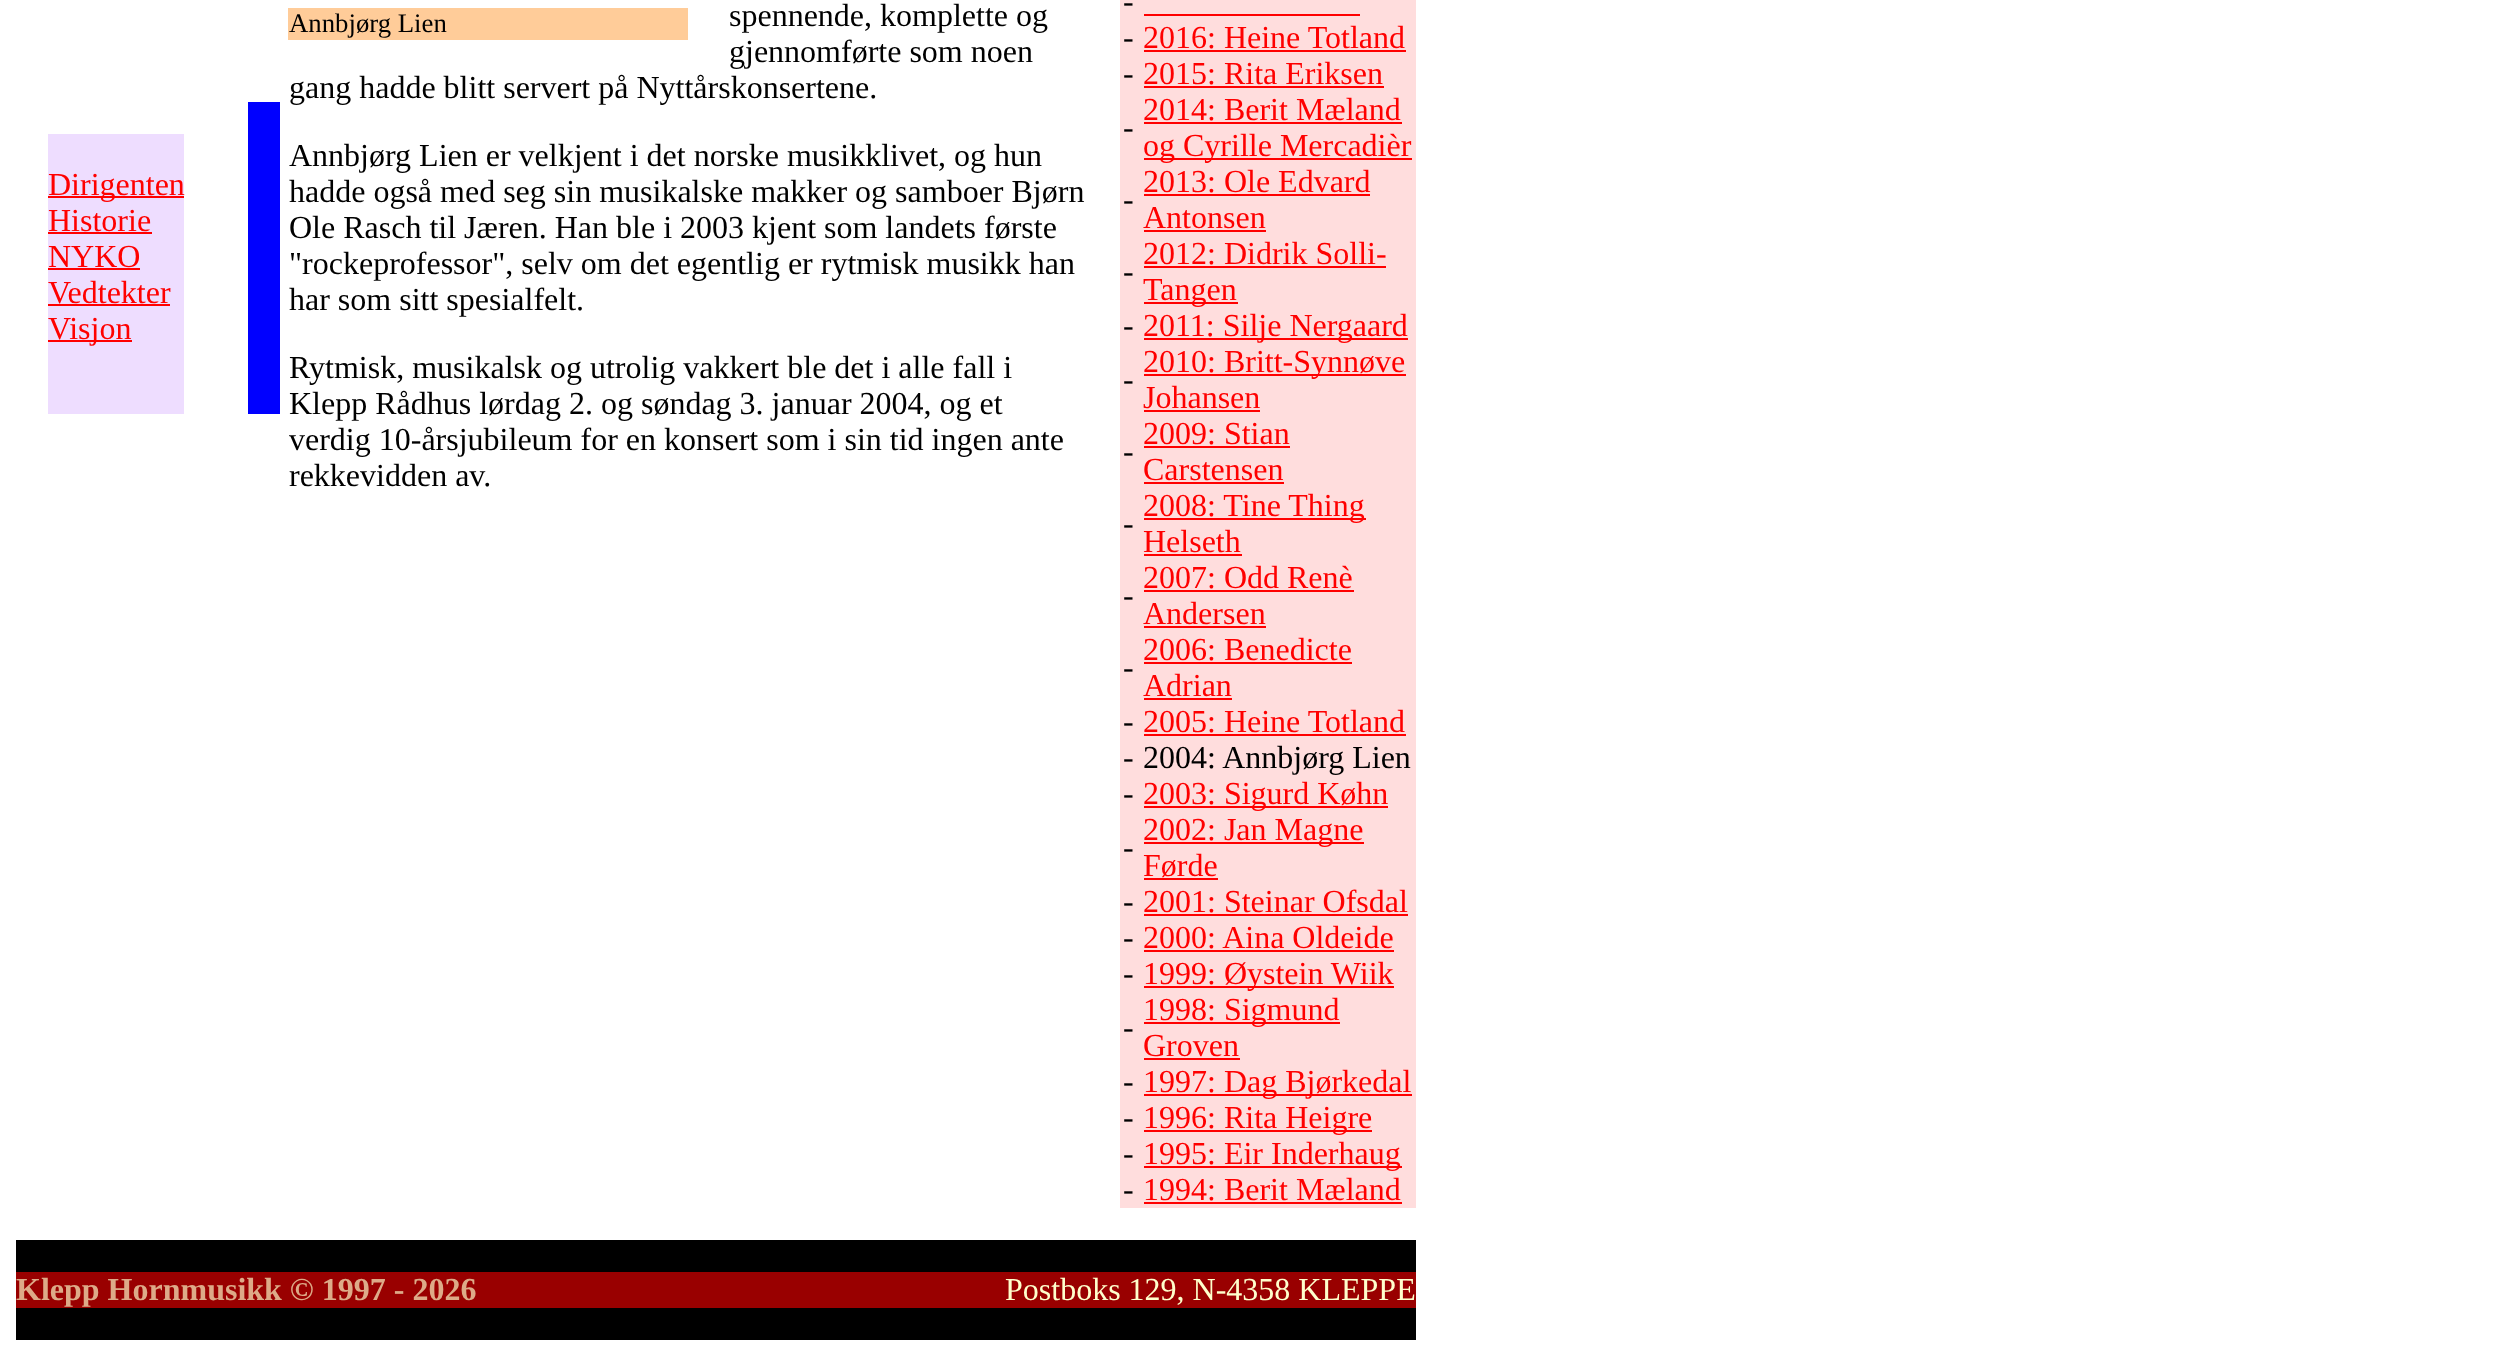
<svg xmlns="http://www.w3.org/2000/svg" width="2505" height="1355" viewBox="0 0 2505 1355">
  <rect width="100%" height="100%" fill="rgb(255,255,255)"/>
  <rect x="48" y="134" width="136" height="280" fill="rgb(238,221,255)"/>
  <rect x="48" y="196" width="136" height="2" fill="rgb(255,0,0)"/>
  <g font-family="Liberation Serif" font-size="32" fill="rgb(255,0,0)">
    <text>
      <tspan x="48" y="195">Dirigenten</tspan>
      <tspan x="48" y="231">Historie</tspan>
    </text>
  </g>
  <rect x="48" y="232" width="104" height="2" fill="rgb(255,0,0)"/>
  <text x="48" y="267" font-family="Liberation Serif" font-size="32" fill="rgb(255,0,0)">NYKO</text>
  <rect x="48" y="268" width="92" height="2" fill="rgb(255,0,0)"/>
  <text x="48" y="303" font-family="Liberation Serif" font-size="32" fill="rgb(255,0,0)">Vedtekter</text>
  <rect x="48" y="304" width="122" height="2" fill="rgb(255,0,0)"/>
  <rect x="48" y="340" width="84" height="2" fill="rgb(255,0,0)"/>
  <text x="48" y="339" font-family="Liberation Serif" font-size="32" fill="rgb(255,0,0)">Visjon</text>
  <rect x="248" y="102" width="32" height="312" fill="rgb(0,0,255)"/>
  <rect x="288" y="8" width="400" height="32" fill="rgb(255,204,153)"/>
  <text x="289" y="32" font-family="Liberation Serif" font-size="26.75" fill="rgb(0,0,0)">Annbjørg Lien</text>
  <g font-family="Liberation Serif" font-size="32" fill="rgb(0,0,0)">
    <text>
      <tspan x="729" y="26">spennende, komplette og</tspan>
      <tspan x="729" y="62">gjennomførte som noen</tspan>
    </text>
    <text x="289" y="98">gang hadde blitt servert på Nyttårskonsertene.</text>
    <text>
      <tspan x="289" y="166">Annbjørg Lien er velkjent i det norske musikklivet, og hun</tspan>
      <tspan x="289" y="202">hadde også med seg sin musikalske makker og samboer Bjørn</tspan>
      <tspan x="289" y="238">Ole Rasch til Jæren. Han ble i 2003 kjent som landets første</tspan>
      <tspan x="289" y="274">"rockeprofessor", selv om det egentlig er rytmisk musikk han</tspan>
      <tspan x="289" y="310">har som sitt spesialfelt.</tspan>
    </text>
    <text>
      <tspan x="289" y="378">Rytmisk, musikalsk og utrolig vakkert ble det i alle fall i</tspan>
      <tspan x="289" y="414">Klepp Rådhus lørdag 2. og søndag 3. januar 2004, og et</tspan>
      <tspan x="289" y="450">verdig 10-årsjubileum for en konsert som i sin tid ingen ante</tspan>
      <tspan x="289" y="486">rekkevidden av.</tspan>
    </text>
  </g>
  <rect x="1120" y="0" width="296" height="1208" fill="rgb(255,221,221)"/>
  <text x="1123" y="12" font-family="Liberation Serif" font-size="32" fill="rgb(0,0,0)">-</text>
  <rect x="1144" y="14" width="216" height="2" fill="rgb(255,0,0)"/>
  <text x="1123" y="48" font-family="Liberation Serif" font-size="32" fill="rgb(0,0,0)">-</text>
  <text x="1143" y="48" font-family="Liberation Serif" font-size="32" fill="rgb(255,0,0)">2016: Heine Totland</text>
  <rect x="1144" y="50" width="262" height="2" fill="rgb(255,0,0)"/>
  <text x="1123" y="84" font-family="Liberation Serif" font-size="32" fill="rgb(0,0,0)">-</text>
  <text x="1143" y="84" font-family="Liberation Serif" font-size="32" fill="rgb(255,0,0)">2015: Rita Eriksen</text>
  <rect x="1144" y="86" width="240" height="2" fill="rgb(255,0,0)"/>
  <text x="1123" y="138" font-family="Liberation Serif" font-size="32" fill="rgb(0,0,0)">-</text>
  <text x="1143" y="120" font-family="Liberation Serif" font-size="32" fill="rgb(255,0,0)">2014: Berit Mæland</text>
  <rect x="1144" y="122" width="258" height="2" fill="rgb(255,0,0)"/>
  <rect x="1144" y="158" width="268" height="2" fill="rgb(255,0,0)"/>
  <text x="1143" y="156" font-family="Liberation Serif" font-size="32" fill="rgb(255,0,0)">og Cyrille Mercadièr</text>
  <text x="1123" y="210" font-family="Liberation Serif" font-size="32" fill="rgb(0,0,0)">-</text>
  <text x="1143" y="192" font-family="Liberation Serif" font-size="32" fill="rgb(255,0,0)">2013: Ole Edvard</text>
  <rect x="1144" y="194" width="226" height="2" fill="rgb(255,0,0)"/>
  <text x="1143" y="228" font-family="Liberation Serif" font-size="32" fill="rgb(255,0,0)">Antonsen</text>
  <rect x="1144" y="230" width="122" height="2" fill="rgb(255,0,0)"/>
  <text x="1123" y="282" font-family="Liberation Serif" font-size="32" fill="rgb(0,0,0)">-</text>
  <text x="1143" y="264" font-family="Liberation Serif" font-size="32" fill="rgb(255,0,0)">2012: Didrik Solli-</text>
  <rect x="1144" y="266" width="242" height="2" fill="rgb(255,0,0)"/>
  <rect x="1144" y="302" width="94" height="2" fill="rgb(255,0,0)"/>
  <text x="1143" y="300" font-family="Liberation Serif" font-size="32" fill="rgb(255,0,0)">Tangen</text>
  <text x="1123" y="336" font-family="Liberation Serif" font-size="32" fill="rgb(0,0,0)">-</text>
  <rect x="1144" y="338" width="264" height="2" fill="rgb(255,0,0)"/>
  <text x="1143" y="336" font-family="Liberation Serif" font-size="32" fill="rgb(255,0,0)">2011: Silje Nergaard</text>
  <text x="1123" y="390" font-family="Liberation Serif" font-size="32" fill="rgb(0,0,0)">-</text>
  <rect x="1144" y="374" width="262" height="2" fill="rgb(255,0,0)"/>
  <g font-family="Liberation Serif" font-size="32" fill="rgb(255,0,0)">
    <text>
      <tspan x="1143" y="372">2010: Britt-Synnøve</tspan>
      <tspan x="1143" y="408">Johansen</tspan>
    </text>
  </g>
  <rect x="1144" y="410" width="116" height="2" fill="rgb(255,0,0)"/>
  <text x="1123" y="462" font-family="Liberation Serif" font-size="32" fill="rgb(0,0,0)">-</text>
  <text x="1143" y="444" font-family="Liberation Serif" font-size="32" fill="rgb(255,0,0)">2009: Stian</text>
  <rect x="1144" y="446" width="146" height="2" fill="rgb(255,0,0)"/>
  <text x="1143" y="480" font-family="Liberation Serif" font-size="32" fill="rgb(255,0,0)">Carstensen</text>
  <rect x="1144" y="482" width="140" height="2" fill="rgb(255,0,0)"/>
  <text x="1123" y="534" font-family="Liberation Serif" font-size="32" fill="rgb(0,0,0)">-</text>
  <rect x="1144" y="518" width="222" height="2" fill="rgb(255,0,0)"/>
  <g font-family="Liberation Serif" font-size="32" fill="rgb(255,0,0)">
    <text>
      <tspan x="1143" y="516">2008: Tine Thing</tspan>
      <tspan x="1143" y="552">Helseth</tspan>
    </text>
  </g>
  <rect x="1144" y="554" width="98" height="2" fill="rgb(255,0,0)"/>
  <text x="1123" y="606" font-family="Liberation Serif" font-size="32" fill="rgb(0,0,0)">-</text>
  <text x="1143" y="588" font-family="Liberation Serif" font-size="32" fill="rgb(255,0,0)">2007: Odd Renè</text>
  <rect x="1144" y="590" width="210" height="2" fill="rgb(255,0,0)"/>
  <text x="1143" y="624" font-family="Liberation Serif" font-size="32" fill="rgb(255,0,0)">Andersen</text>
  <rect x="1144" y="626" width="122" height="2" fill="rgb(255,0,0)"/>
  <text x="1123" y="678" font-family="Liberation Serif" font-size="32" fill="rgb(0,0,0)">-</text>
  <text x="1143" y="660" font-family="Liberation Serif" font-size="32" fill="rgb(255,0,0)">2006: Benedicte</text>
  <rect x="1144" y="662" width="208" height="2" fill="rgb(255,0,0)"/>
  <text x="1143" y="696" font-family="Liberation Serif" font-size="32" fill="rgb(255,0,0)">Adrian</text>
  <rect x="1144" y="698" width="88" height="2" fill="rgb(255,0,0)"/>
  <text x="1123" y="732" font-family="Liberation Serif" font-size="32" fill="rgb(0,0,0)">-</text>
  <text x="1143" y="732" font-family="Liberation Serif" font-size="32" fill="rgb(255,0,0)">2005: Heine Totland</text>
  <rect x="1144" y="734" width="262" height="2" fill="rgb(255,0,0)"/>
  <g font-family="Liberation Serif" font-size="32" fill="rgb(0,0,0)">
    <text x="1123" y="768">-</text>
    <text x="1143" y="768">2004: Annbjørg Lien</text>
    <text x="1123" y="804">-</text>
  </g>
  <rect x="1144" y="806" width="244" height="2" fill="rgb(255,0,0)"/>
  <text x="1143" y="804" font-family="Liberation Serif" font-size="32" fill="rgb(255,0,0)">2003: Sigurd Køhn</text>
  <text x="1123" y="858" font-family="Liberation Serif" font-size="32" fill="rgb(0,0,0)">-</text>
  <rect x="1144" y="842" width="220" height="2" fill="rgb(255,0,0)"/>
  <g font-family="Liberation Serif" font-size="32" fill="rgb(255,0,0)">
    <text>
      <tspan x="1143" y="840">2002: Jan Magne</tspan>
      <tspan x="1143" y="876">Førde</tspan>
    </text>
  </g>
  <rect x="1144" y="878" width="74" height="2" fill="rgb(255,0,0)"/>
  <text x="1123" y="912" font-family="Liberation Serif" font-size="32" fill="rgb(0,0,0)">-</text>
  <text x="1143" y="912" font-family="Liberation Serif" font-size="32" fill="rgb(255,0,0)">2001: Steinar Ofsdal</text>
  <rect x="1144" y="914" width="264" height="2" fill="rgb(255,0,0)"/>
  <text x="1123" y="948" font-family="Liberation Serif" font-size="32" fill="rgb(0,0,0)">-</text>
  <text x="1143" y="948" font-family="Liberation Serif" font-size="32" fill="rgb(255,0,0)">2000: Aina Oldeide</text>
  <rect x="1144" y="950" width="250" height="2" fill="rgb(255,0,0)"/>
  <text x="1123" y="984" font-family="Liberation Serif" font-size="32" fill="rgb(0,0,0)">-</text>
  <rect x="1144" y="986" width="250" height="2" fill="rgb(255,0,0)"/>
  <text x="1143" y="984" font-family="Liberation Serif" font-size="32" fill="rgb(255,0,0)">1999: Øystein Wiik</text>
  <text x="1123" y="1038" font-family="Liberation Serif" font-size="32" fill="rgb(0,0,0)">-</text>
  <rect x="1144" y="1022" width="196" height="2" fill="rgb(255,0,0)"/>
  <g font-family="Liberation Serif" font-size="32" fill="rgb(255,0,0)">
    <text>
      <tspan x="1143" y="1020">1998: Sigmund</tspan>
      <tspan x="1143" y="1056">Groven</tspan>
    </text>
  </g>
  <rect x="1144" y="1058" width="96" height="2" fill="rgb(255,0,0)"/>
  <text x="1123" y="1092" font-family="Liberation Serif" font-size="32" fill="rgb(0,0,0)">-</text>
  <rect x="1144" y="1094" width="268" height="2" fill="rgb(255,0,0)"/>
  <text x="1143" y="1092" font-family="Liberation Serif" font-size="32" fill="rgb(255,0,0)">1997: Dag Bjørkedal</text>
  <text x="1123" y="1128" font-family="Liberation Serif" font-size="32" fill="rgb(0,0,0)">-</text>
  <rect x="1144" y="1130" width="228" height="2" fill="rgb(255,0,0)"/>
  <text x="1143" y="1128" font-family="Liberation Serif" font-size="32" fill="rgb(255,0,0)">1996: Rita Heigre</text>
  <text x="1123" y="1164" font-family="Liberation Serif" font-size="32" fill="rgb(0,0,0)">-</text>
  <rect x="1144" y="1166" width="258" height="2" fill="rgb(255,0,0)"/>
  <text x="1143" y="1164" font-family="Liberation Serif" font-size="32" fill="rgb(255,0,0)">1995: Eir Inderhaug</text>
  <text x="1123" y="1200" font-family="Liberation Serif" font-size="32" fill="rgb(0,0,0)">-</text>
  <text x="1143" y="1200" font-family="Liberation Serif" font-size="32" fill="rgb(255,0,0)">1994: Berit Mæland</text>
  <rect x="1144" y="1202" width="258" height="2" fill="rgb(255,0,0)"/>
  <rect x="16" y="1240" width="1400" height="32" fill="rgb(0,0,0)"/>
  <rect x="16" y="1272" width="1400" height="36" fill="rgb(153,0,0)"/>
  <text x="16" y="1300" font-family="Liberation Serif" font-size="32" font-weight="bold" fill="rgb(221,170,136)">Klepp Hornmusikk © 1997 - 2026</text>
  <text x="1005" y="1300" font-family="Liberation Serif" font-size="32" fill="rgb(255,255,204)">Postboks 129, N-4358 KLEPPE</text>
  <rect x="16" y="1308" width="1400" height="32" fill="rgb(0,0,0)"/>
</svg>
